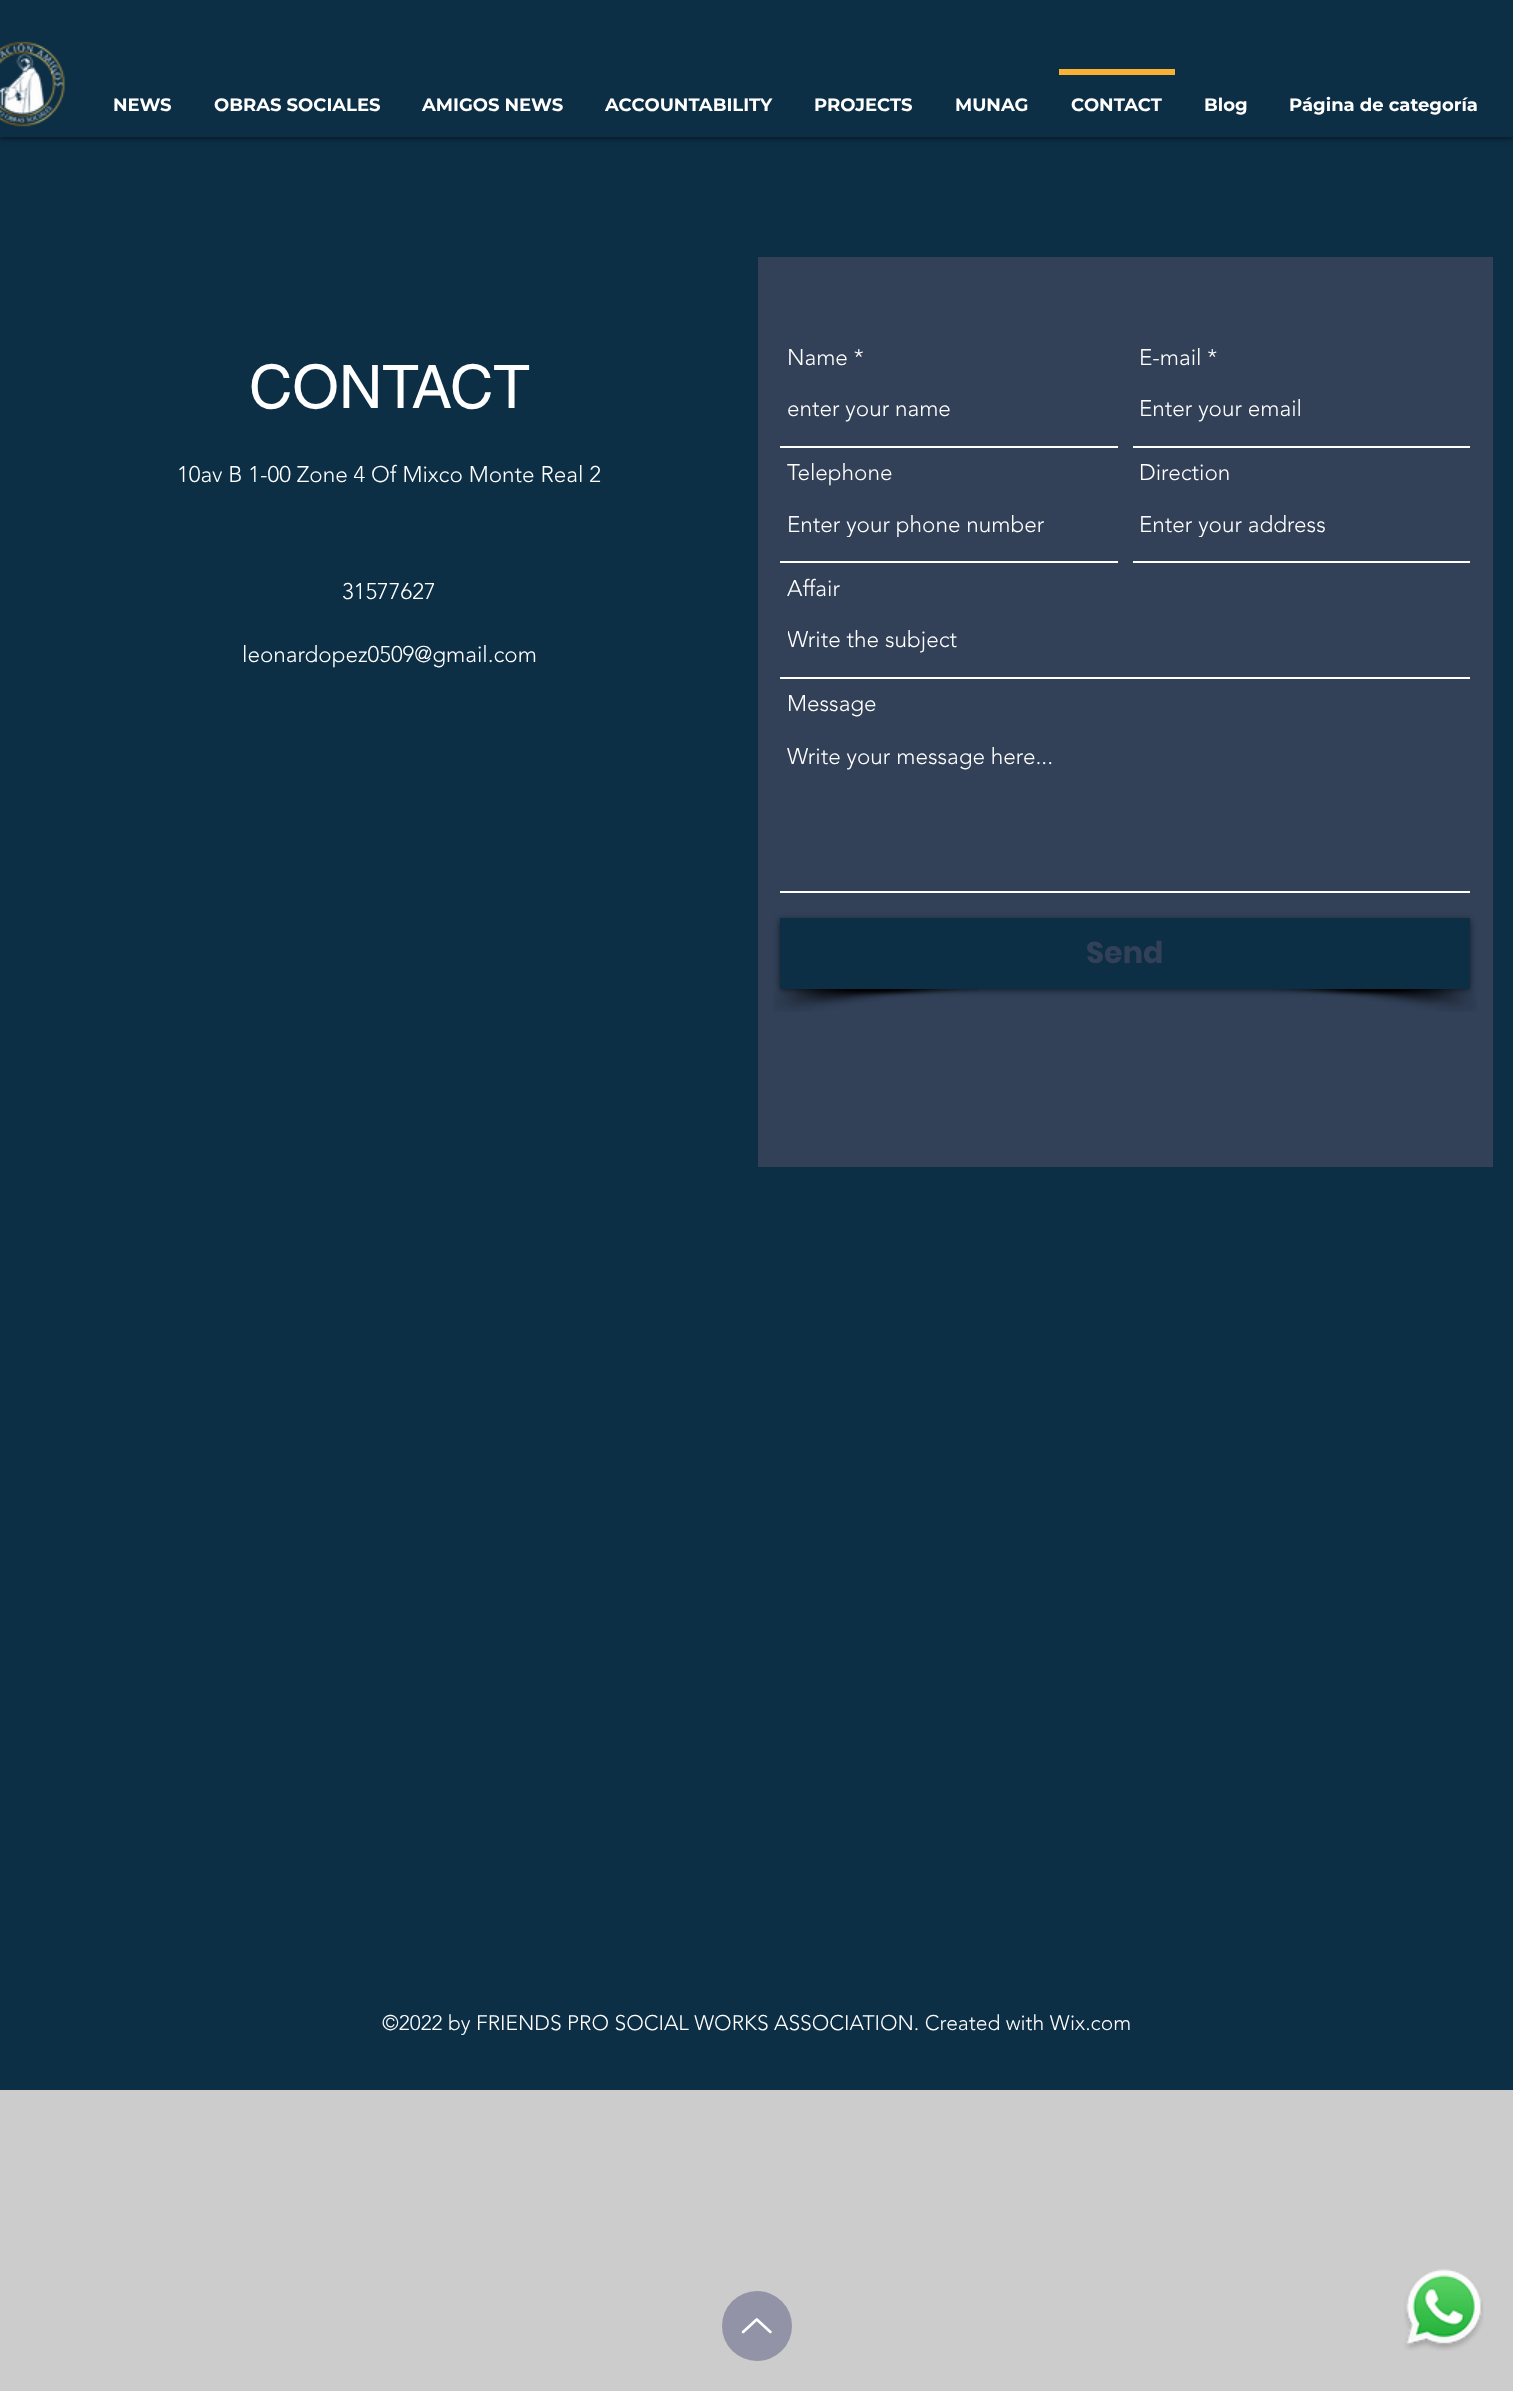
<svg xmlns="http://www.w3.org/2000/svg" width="1513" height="2391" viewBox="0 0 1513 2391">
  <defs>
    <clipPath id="clip1"><rect x="788" y="510" width="325" height="27"/></clipPath>
    <clipPath id="clip2"><rect x="1140" y="510" width="326" height="27"/></clipPath>
    <clipPath id="clip3"><rect x="788" y="626" width="678" height="27"/></clipPath>
  </defs>
  <rect width="100%" height="100%" fill="rgb(204,204,204)"/>
  <rect x="0" y="137" width="1513" height="1953" fill="rgb(13,47,70)"/>
  <rect x="0" y="2" width="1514" height="136" fill="rgba(0,0,0,0.6)" filter="blur(3px)"/>
  <rect x="0" y="0" width="1513" height="137" fill="rgb(13,47,70)"/>
  <image x="0" y="41" width="65" height="86" href="pic1.png"/>
  <g font-family="Montserrat" font-size="18" font-weight="bold" fill="rgb(255,255,255)">
    <text x="113" y="111">NEWS</text>
    <text x="214" y="111">OBRAS SOCIALES</text>
    <text x="422" y="111">AMIGOS NEWS</text>
    <text x="605" y="111">ACCOUNTABILITY</text>
    <text x="814" y="111">PROJECTS</text>
    <text x="955" y="111">MUNAG</text>
  </g>
  <rect x="1059" y="69" width="116" height="6" fill="rgb(248,177,51)"/>
  <g font-family="Montserrat" font-size="18" font-weight="bold" fill="rgb(255,255,255)">
    <text x="1071" y="111">CONTACT</text>
    <text x="1204" y="111">Blog</text>
    <text x="1289" y="111">Página de categoría</text>
  </g>
  <text x="249" y="408" font-family="helvetica" font-size="60" fill="rgb(255,255,255)">CONTACT</text>
  <g font-family="'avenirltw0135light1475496'" font-size="22.5" font-weight="300" fill="rgb(255,255,255)">
    <text x="177" y="482">10av B 1-00 Zone 4 Of Mixco Monte Real 2</text>
    <text x="342" y="599">31577627</text>
    <text x="242" y="662">leonardopez0509@gmail.com</text>
  </g>
  <rect x="758" y="257" width="735" height="910" fill="rgb(50,65,88)"/>
  <text x="787" y="365" font-family="'avenirltw0135light1475496'" font-size="22.5" font-weight="300" fill="rgb(255,255,255)">Name *</text>
  <rect x="780" y="446" width="338" height="2" fill="rgb(255,255,255)"/>
  <g font-family="'avenirltw0135light1475496'" font-size="22.5" font-weight="300" fill="rgb(255,255,255)">
    <text x="787" y="416">enter your name</text>
    <text x="1139" y="365">E-mail *</text>
  </g>
  <rect x="1133" y="446" width="337" height="2" fill="rgb(255,255,255)"/>
  <g font-family="'avenirltw0135light1475496'" font-size="22.5" font-weight="300" fill="rgb(255,255,255)">
    <text x="1139" y="416">Enter your email</text>
    <text x="787" y="480">Telephone</text>
  </g>
  <rect x="780" y="561" width="338" height="2" fill="rgb(255,255,255)"/>
  <g clip-path="url(#clip1)">
    <text x="787" y="532" font-family="'avenirltw0135light1475496'" font-size="22.5" font-weight="300" fill="rgb(255,255,255)">Enter your phone number</text>
  </g>
  <text x="1139" y="480" font-family="'avenirltw0135light1475496'" font-size="22.5" font-weight="300" fill="rgb(255,255,255)">Direction</text>
  <rect x="1133" y="561" width="337" height="2" fill="rgb(255,255,255)"/>
  <g clip-path="url(#clip2)">
    <text x="1139" y="532" font-family="'avenirltw0135light1475496'" font-size="22.5" font-weight="300" fill="rgb(255,255,255)">Enter your address</text>
  </g>
  <text x="787" y="596" font-family="'avenirltw0135light1475496'" font-size="22.5" font-weight="300" fill="rgb(255,255,255)">Affair</text>
  <rect x="780" y="677" width="690" height="2" fill="rgb(255,255,255)"/>
  <g clip-path="url(#clip3)">
    <text x="787" y="647" font-family="'avenirltw0135light1475496'" font-size="22.5" font-weight="300" fill="rgb(255,255,255)">Write the subject</text>
  </g>
  <text x="787" y="711" font-family="'avenirltw0135light1475496'" font-size="22.5" font-weight="300" fill="rgb(255,255,255)">Message</text>
  <rect x="780" y="891" width="690" height="2" fill="rgb(255,255,255)"/>
  <text x="787" y="764" font-family="'avenirltw0135light1475496'" font-size="22.5" font-weight="300" fill="rgb(255,255,255)">Write your message here...</text>
  <image x="773" y="989" width="205" height="23" href="pic2.png"/>
  <image x="1272" y="989" width="205" height="23" href="pic3.png"/>
  <rect x="780" y="920" width="690" height="70" fill="rgba(0,0,0,0.6)" filter="blur(3px)"/>
  <rect x="780" y="918" width="690" height="71" fill="rgb(13,47,70)"/>
  <text x="1086" y="963" font-family="Poppins" font-size="30" font-weight="bold" fill="rgb(50,65,88)">Send</text>
  <circle cx="757" cy="2326" r="35" fill="rgb(146,147,166)"/>
  <image x="741" y="2318" width="31" height="16" href="pic4.png"/>
  <image x="1404" y="2269" width="80" height="82" href="pic5.png"/>
  <text x="382" y="2030" font-family="'avenirltw0135light1475496'" font-size="21" font-weight="300" fill="rgb(255,255,255)">©2022 by FRIENDS PRO SOCIAL WORKS ASSOCIATION. Created with Wix.com</text>
</svg>
